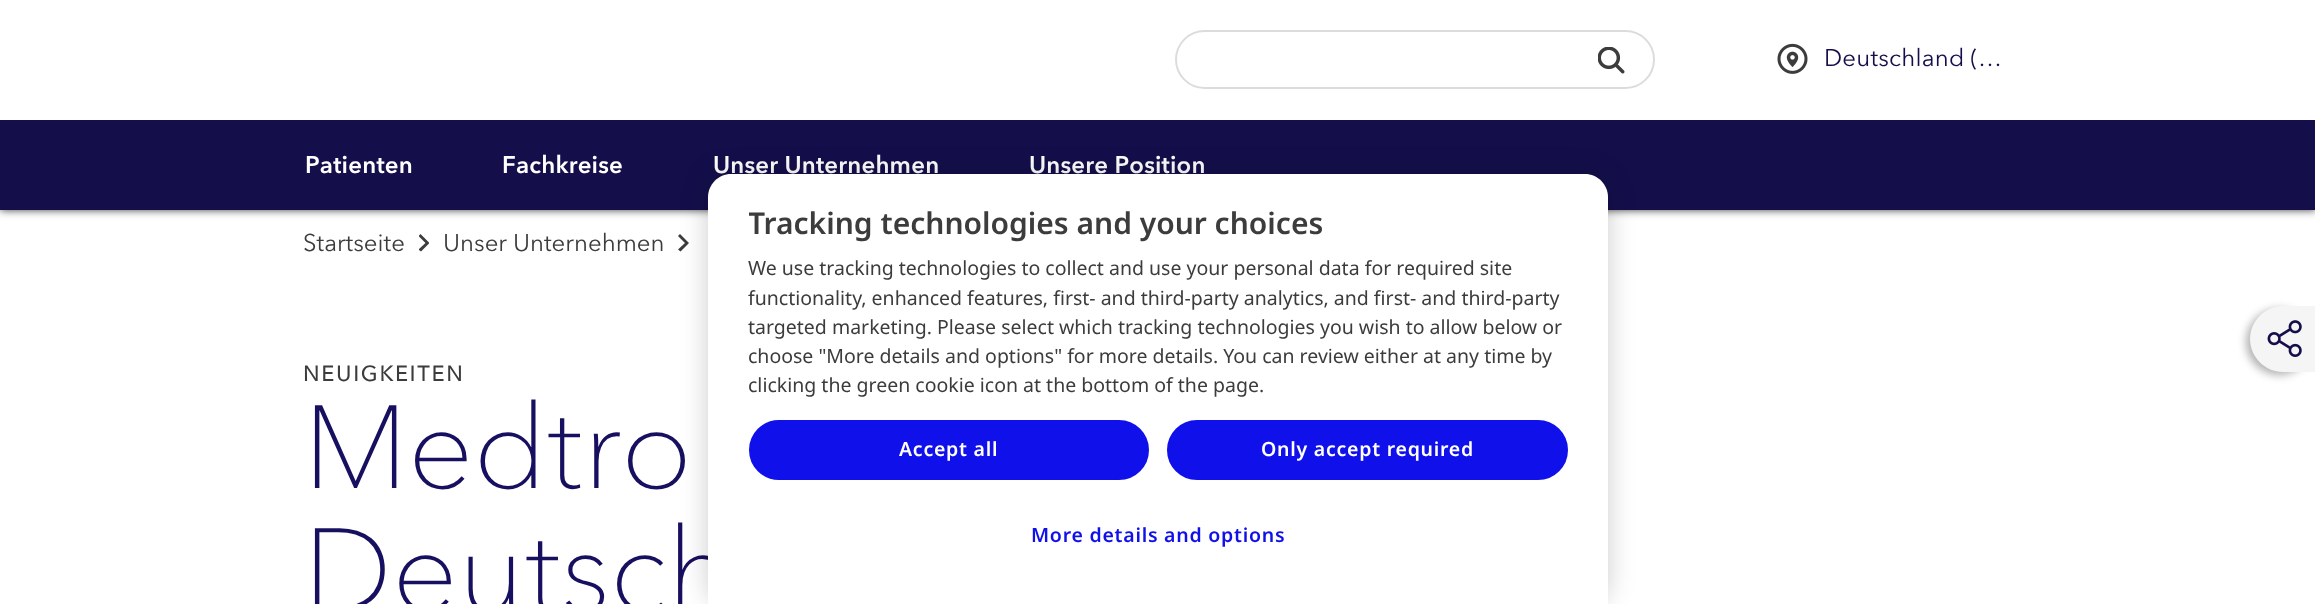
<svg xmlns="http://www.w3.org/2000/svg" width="2315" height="604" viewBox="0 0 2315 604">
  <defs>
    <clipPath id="clip1"><rect x="419" y="234" width="10" height="18"/></clipPath>
    <clipPath id="clip2"><rect x="749" y="204" width="819" height="216"/></clipPath>
  </defs>
  <rect width="100%" height="100%" fill="rgb(255,255,255)"/>
  <rect x="0" y="0" width="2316" height="210" fill="rgb(60,60,60)" filter="blur(4px)"/>
  <rect x="0" y="120" width="2315" height="90" fill="rgb(20,15,75)"/>
  <rect x="0" y="0" width="2315" height="120" fill="rgb(255,255,255)"/>
  <rect x="1176" y="31" width="478" height="57" rx="28.5" fill="none" stroke="rgb(220,220,220)" stroke-width="2"/>
  <image x="1598" y="47" width="27" height="27" href="pic1.png"/>
  <image x="1777" y="43" width="31" height="31" href="pic2.png"/>
  <text x="1824" y="66" font-family="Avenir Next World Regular" font-size="24" letter-spacing="0.2" fill="rgb(20,15,75)">Deutschland (…</text>
  <g font-family="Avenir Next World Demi" font-size="24" font-weight="600" letter-spacing="0.2" fill="rgb(255,255,255)">
    <text x="305" y="173">Patienten</text>
    <text x="502" y="173">Fachkreise</text>
    <text x="713" y="173">Unser Unternehmen</text>
    <text x="1029" y="173">Unsere Position</text>
  </g>
  <text x="303" y="251" font-family="Avenir Next World Regular" font-size="24" fill="rgb(60,60,60)">Startseite</text>
  <g clip-path="url(#clip1)">
    <path d="M420.5 234L418.5 236L425.5 243L418.5 249.5L421 251.5L429.5 243Z" fill="rgb(60,60,60)"/>
  </g>
  <text x="443" y="251" font-family="Avenir Next World Regular" font-size="24" fill="rgb(60,60,60)">Unser Unternehmen</text>
  <path d="M680 234L678 236L685 243L678 249.5L680.5 251.5L689 243Z" fill="rgb(60,60,60)"/>
  <rect x="2246" y="309" width="66" height="66" rx="33" fill="rgba(0,0,0,0.3)" filter="blur(4px)"/>
  <path d="M2283 306H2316V372H2283C2265 372 2250 357 2250 339C2250 321 2265 306 2283 306Z" fill="rgb(245,245,245)"/>
  <image x="2267" y="320" width="35" height="37" href="pic3.png"/>
  <text x="303" y="381" font-family="Avenir Next World Regular" font-size="21" font-weight="bold" letter-spacing="2.25" fill="rgb(60,60,60)">NEUIGKEITEN</text>
  <g font-family="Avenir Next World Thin" font-size="117" font-weight="100" letter-spacing="-0.25" fill="rgb(23,15,95)">
    <text>
      <tspan x="303" y="488">Medtro</tspan>
      <tspan x="303" y="611">Deutsch</tspan>
    </text>
  </g>
  <rect x="708" y="174" width="900" height="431" rx="23" fill="rgba(0,0,0,0.2)" filter="blur(13.5px)"/>
  <path d="M731 174H1585C1597.5 174 1608 184.5 1608 197V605H708V197C708 184.5 718.5 174 731 174Z" fill="rgb(255,255,255)"/>
  <g clip-path="url(#clip2)">
    <text x="748" y="234" font-family="Noto Sans" font-size="30" font-weight="600" fill="rgb(60,60,60)">Tracking technologies and your choices</text>
  </g>
  <g font-family="Noto Sans" font-size="19.5" fill="rgb(60,60,60)">
    <text>
      <tspan x="748" y="275">We use tracking technologies to collect and use your personal data for required site</tspan>
      <tspan x="748" y="305">functionality, enhanced features, first- and third-party analytics, and first- and third-party</tspan>
      <tspan x="748" y="334">targeted marketing. Please select which tracking technologies you wish to allow below or</tspan>
      <tspan x="748" y="363">choose "More details and options" for more details. You can review either at any time by</tspan>
      <tspan x="748" y="392">clicking the green cookie icon at the bottom of the page.</tspan>
    </text>
  </g>
  <rect x="750" y="421" width="398" height="58" rx="29" fill="rgb(16,16,235)" stroke="rgb(16,16,235)" stroke-width="2"/>
  <text x="899" y="456" font-family="Noto Sans" font-size="19.5" font-weight="600" letter-spacing="0.75" fill="rgb(255,255,255)">Accept all</text>
  <rect x="1168" y="421" width="399" height="58" rx="29" fill="rgb(16,16,235)" stroke="rgb(16,16,235)" stroke-width="2"/>
  <text x="1261" y="456" font-family="Noto Sans" font-size="19.5" font-weight="600" letter-spacing="0.75" fill="rgb(255,255,255)">Only accept required</text>
  <text x="1031" y="542" font-family="Noto Sans" font-size="19.5" font-weight="600" letter-spacing="0.75" fill="rgb(16,16,235)">More details and options</text>
</svg>
